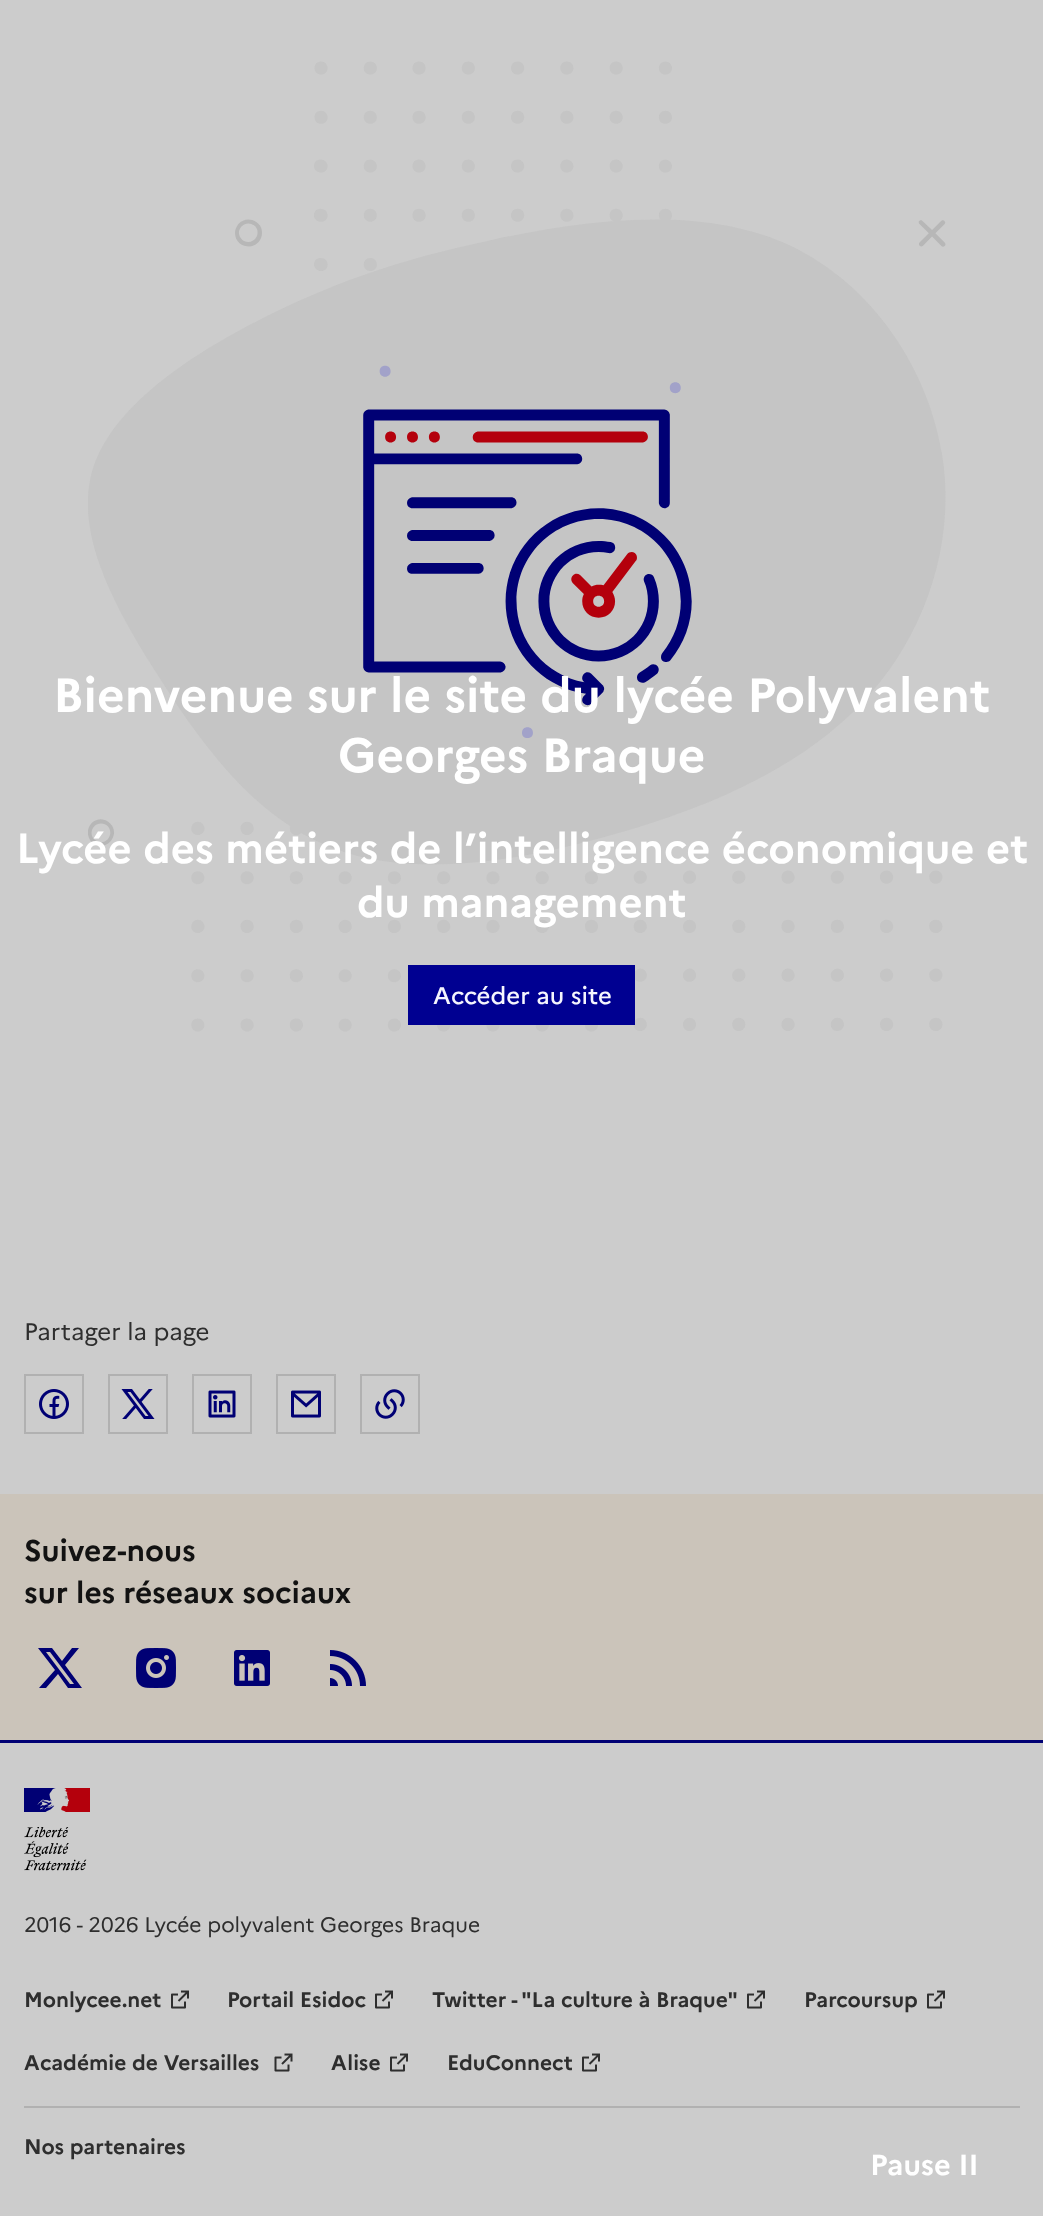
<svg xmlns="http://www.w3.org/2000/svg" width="1043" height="2216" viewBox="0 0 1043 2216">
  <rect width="100%" height="100%" fill="rgb(204,204,204)"/>
  <image x="88" y="61" width="858" height="971" href="pic1.png"/>
  <g font-family="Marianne" font-size="48" font-weight="bold" fill="rgb(255,255,255)">
    <text x="53" y="712">Bienvenue sur le site du lycée Polyvalent</text>
    <text x="338" y="772">Georges Braque</text>
  </g>
  <g font-family="Marianne" font-size="42" font-weight="bold" fill="rgb(255,255,255)">
    <text x="16" y="863">Lycée des métiers de l’intelligence économique et</text>
    <text x="357" y="917">du management</text>
  </g>
  <rect x="408" y="965" width="227" height="60" fill="rgb(0,0,145)"/>
  <text x="433" y="1004" font-family="Marianne" font-size="24" font-weight="500" fill="rgb(245,245,254)">Accéder au site</text>
  <text x="870" y="2175" font-family="Marianne" font-size="29" font-weight="bold" fill="rgb(255,255,255)">Pause II</text>
  <text x="24" y="1340" font-family="Marianne" font-size="24" fill="rgb(46,46,46)">Partager la page</text>
  <rect x="25" y="1375" width="58" height="58" fill="none" stroke="rgb(177,177,177)" stroke-width="2"/>
  <image x="39" y="1389" width="30" height="30" href="pic2.png"/>
  <rect x="109" y="1375" width="58" height="58" fill="none" stroke="rgb(177,177,177)" stroke-width="2"/>
  <image x="121" y="1389" width="34" height="30" href="pic3.png"/>
  <rect x="193" y="1375" width="58" height="58" fill="none" stroke="rgb(177,177,177)" stroke-width="2"/>
  <image x="208" y="1390" width="28" height="28" href="pic4.png"/>
  <rect x="277" y="1375" width="58" height="58" fill="none" stroke="rgb(177,177,177)" stroke-width="2"/>
  <image x="291" y="1390" width="30" height="28" href="pic5.png"/>
  <rect x="361" y="1375" width="58" height="58" fill="none" stroke="rgb(177,177,177)" stroke-width="2"/>
  <image x="375" y="1389" width="30" height="30" href="pic6.png"/>
  <rect x="0" y="1494" width="1043" height="246" fill="rgb(203,196,186)"/>
  <g font-family="Marianne" font-size="30" font-weight="bold" fill="rgb(18,18,18)">
    <text>
      <tspan x="24" y="1561">Suivez-nous</tspan>
      <tspan x="24" y="1603">sur les réseaux sociaux</tspan>
    </text>
  </g>
  <path d="M72 1648H79L65 1665L82 1688H68L58 1674L46 1688H39L55 1670L38 1648H52L62 1661ZM70 1684H74L50 1652H46Z" fill="rgb(0,0,116)"/>
  <image x="136" y="1648" width="40" height="40" href="pic7.png"/>
  <image x="234" y="1650" width="36" height="36" href="pic8.png"/>
  <image x="330" y="1650" width="36" height="36" href="pic9.png"/>
  <rect x="0" y="1740" width="1043" height="3" fill="rgb(0,0,116)"/>
  <rect x="24" y="1788" width="32" height="24" fill="rgb(0,0,116)"/>
  <rect x="61" y="1788" width="29" height="24" fill="rgb(180,0,12)"/>
  <image x="37" y="1788" width="32" height="24" href="pic10.png"/>
  <image x="24" y="1827" width="63" height="44" href="pic11.png"/>
  <text x="24" y="1932" font-family="Marianne" font-size="21" fill="rgb(46,46,46)">2016 - 2026 Lycée polyvalent Georges Braque</text>
  <text x="24" y="2007" font-family="Marianne" font-size="21" font-weight="bold" fill="rgb(46,46,46)">Monlycee.net</text>
  <image x="171" y="1990" width="18" height="19" href="pic12.png"/>
  <text x="227" y="2007" font-family="Marianne" font-size="21" font-weight="bold" fill="rgb(46,46,46)">Portail Esidoc</text>
  <image x="375" y="1990" width="18" height="19" href="pic12.png"/>
  <text x="432" y="2007" font-family="Marianne" font-size="21" font-weight="bold" fill="rgb(46,46,46)">Twitter - "La culture à Braque"</text>
  <image x="747" y="1990" width="18" height="19" href="pic12.png"/>
  <text x="804" y="2007" font-family="Marianne" font-size="21" font-weight="bold" fill="rgb(46,46,46)">Parcoursup</text>
  <image x="927" y="1990" width="18" height="19" href="pic12.png"/>
  <text x="24" y="2070" font-family="Marianne" font-size="21" font-weight="bold" fill="rgb(46,46,46)">Académie de Versailles</text>
  <image x="274" y="2053" width="19" height="19" href="pic13.png"/>
  <text x="331" y="2070" font-family="Marianne" font-size="21" font-weight="bold" fill="rgb(46,46,46)">Alise</text>
  <image x="390" y="2053" width="18" height="19" href="pic12.png"/>
  <text x="447" y="2070" font-family="Marianne" font-size="21" font-weight="bold" fill="rgb(46,46,46)">EduConnect</text>
  <image x="582" y="2053" width="18" height="19" href="pic12.png"/>
  <rect x="24" y="2106" width="996" height="2" fill="rgb(177,177,177)"/>
  <text x="24" y="2154" font-family="Marianne" font-size="21" font-weight="bold" fill="rgb(46,46,46)">Nos partenaires</text>
</svg>
